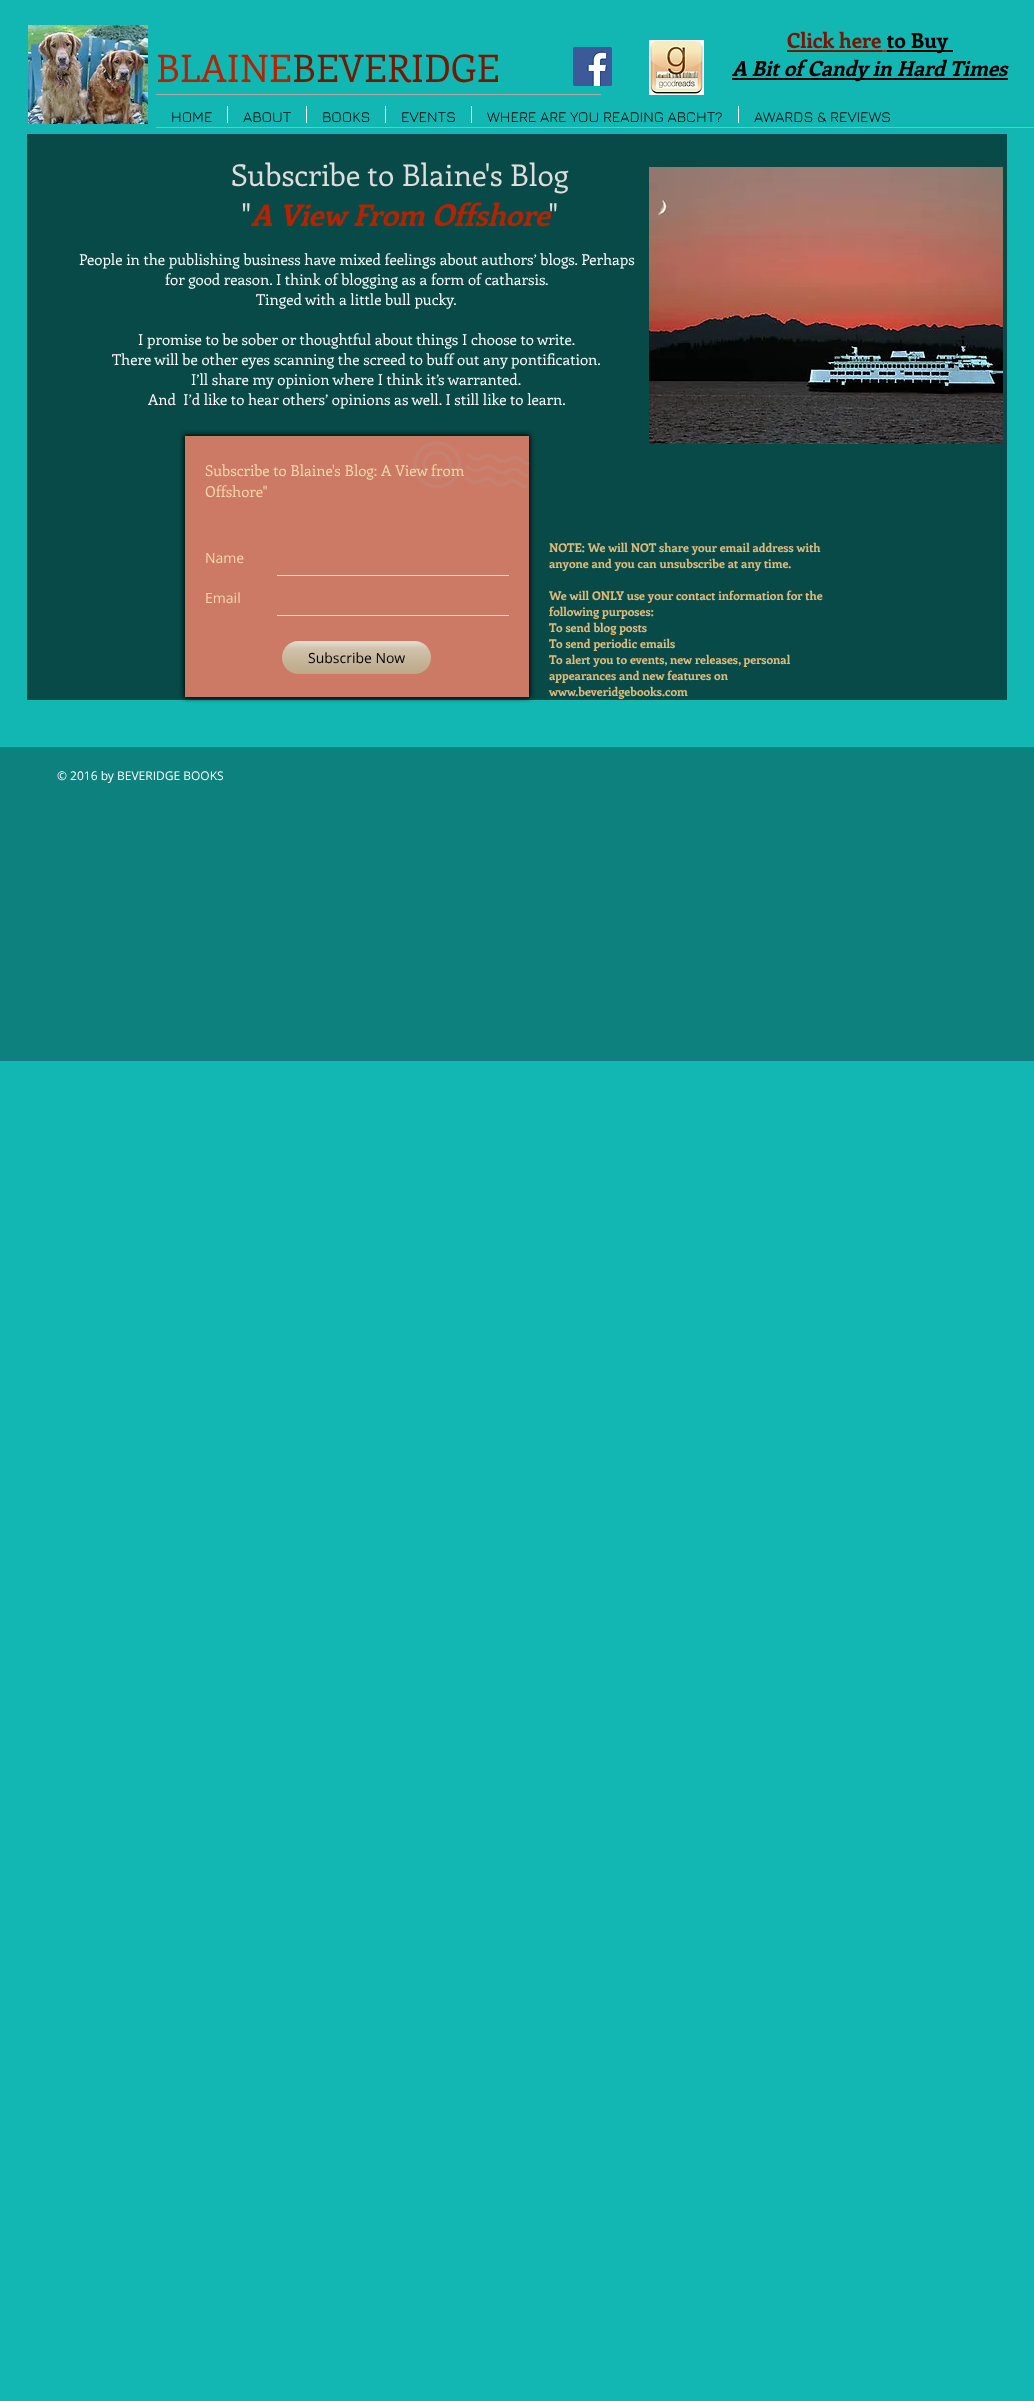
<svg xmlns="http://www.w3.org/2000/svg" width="1034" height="2401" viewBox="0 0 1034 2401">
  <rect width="100%" height="100%" fill="rgb(18,183,179)"/>
  <image x="28" y="25" width="120" height="99" href="pic1.png"/>
  <text x="156" y="82" font-family="Enriqueta" font-size="38" fill="rgb(178,35,0)">BLAINE</text>
  <text x="292" y="82" font-family="Enriqueta" font-size="38" fill="rgb(118,23,0)">BEVERIDGE</text>
  <image x="573" y="47" width="39" height="39" href="pic2.png"/>
  <image x="649" y="40" width="55" height="55" href="pic3.png"/>
  <text x="787" y="48" font-family="Enriqueta" font-size="21" font-weight="bold" fill="rgb(118,23,0)">Click here</text>
  <rect x="787" y="50" width="95" height="2" fill="rgb(118,23,0)"/>
  <rect x="882" y="50" width="5" height="2" fill="rgb(178,35,0)"/>
  <rect x="887" y="50" width="66" height="2" fill="rgb(0,0,0)"/>
  <text x="887" y="48" font-family="Enriqueta" font-size="21" font-weight="bold" fill="rgb(0,0,0)">to Buy</text>
  <rect x="732" y="78" width="276" height="2" fill="rgb(0,0,0)"/>
  <text x="732" y="76" font-family="Enriqueta" font-size="21" font-weight="bold" font-style="italic" fill="rgb(0,0,0)">A Bit of Candy in Hard Times</text>
  <rect x="156" y="94" width="445" height="1" fill="rgb(170,168,168)"/>
  <text x="171" y="122" font-family="Jura" font-size="15" fill="rgb(0,0,0)">HOME</text>
  <rect x="227" y="106" width="1" height="17" fill="rgb(255,255,255)"/>
  <text x="243" y="122" font-family="Jura" font-size="15" fill="rgb(0,0,0)">ABOUT</text>
  <rect x="306" y="106" width="1" height="17" fill="rgb(255,255,255)"/>
  <text x="322" y="122" font-family="Jura" font-size="15" fill="rgb(0,0,0)">BOOKS</text>
  <rect x="385" y="106" width="1" height="17" fill="rgb(255,255,255)"/>
  <text x="401" y="122" font-family="Jura" font-size="15" fill="rgb(0,0,0)">EVENTS</text>
  <rect x="471" y="106" width="1" height="17" fill="rgb(255,255,255)"/>
  <text x="487" y="122" font-family="Jura" font-size="15" fill="rgb(0,0,0)">WHERE ARE YOU READING ABCHT?</text>
  <rect x="738" y="106" width="1" height="17" fill="rgb(255,255,255)"/>
  <text x="754" y="122" font-family="Jura" font-size="15" fill="rgb(0,0,0)">AWARDS &amp; REVIEWS</text>
  <rect x="156" y="127" width="878" height="1" fill="rgb(170,168,168)"/>
  <rect x="27" y="134" width="980" height="566" fill="rgb(7,74,71)"/>
  <g font-family="Enriqueta" font-size="30" fill="rgb(224,221,221)">
    <text x="231" y="186">Subscribe to Blaine's Blog</text>
    <text x="242" y="226">"</text>
  </g>
  <text x="251" y="226" font-family="Enriqueta" font-size="30" font-weight="bold" font-style="italic" fill="rgb(178,35,0)">A View From Offshore</text>
  <text x="549" y="226" font-family="Enriqueta" font-size="30" fill="rgb(224,221,221)">"</text>
  <image x="649" y="167" width="354" height="277" href="pic4.png"/>
  <g font-family="Enriqueta" font-size="15" fill="rgb(255,255,255)">
    <text x="79" y="265">People in the publishing business have mixed feelings about authors’ blogs. Perhaps</text>
    <text x="165" y="285">for good reason. I think of blogging as a form of catharsis.</text>
    <text x="256" y="305">Tinged with a little bull pucky.</text>
    <text x="138" y="345">I promise to be sober or thoughtful about things I choose to write.</text>
    <text x="112" y="365">There will be other eyes scanning the screed to buff out any pontification.</text>
    <text x="191" y="385">I’ll share my opinion where I think it’s warranted.</text>
    <text x="148" y="405" xml:space="preserve">And  I’d like to hear others’ opinions as well. I still like to learn.</text>
  </g>
  <rect x="184" y="435" width="346" height="263" fill="rgb(0,0,0)" filter="blur(2.5px)"/>
  <rect x="185" y="436" width="344" height="261" fill="rgb(204,122,102)"/>
  <text x="205" y="476" font-family="Enriqueta" font-size="15" fill="rgb(244,216,168)">Subscribe to Blaine's Blog:</text>
  <image x="413" y="441" width="117" height="48" href="pic5.png"/>
  <g font-family="Enriqueta" font-size="15" fill="rgb(244,216,168)">
    <text x="381" y="476">A View from</text>
    <text x="205" y="497">Offshore"</text>
  </g>
  <text x="205" y="563" font-family="Open Sans" font-size="14" fill="rgb(244,216,168)">Name</text>
  <rect x="277" y="575" width="232" height="1" fill="rgb(224,221,221)"/>
  <text x="205" y="603" font-family="Open Sans" font-size="14" fill="rgb(244,216,168)">Email</text>
  <rect x="277" y="615" width="232" height="1" fill="rgb(224,221,221)"/>
  <rect x="282" y="641" width="149" height="33" rx="16.5" fill="rgb(183,162,126)"/>
  <image x="282" y="641" width="149" height="33" href="pic6.png"/>
  <text x="308" y="663" font-family="Open Sans" font-size="14" fill="rgb(0,0,0)">Subscribe Now</text>
  <g font-family="Enriqueta" font-size="12" font-weight="bold" fill="rgb(224,186,121)">
    <text>
      <tspan x="549" y="552">NOTE: We will NOT share your email address with</tspan>
      <tspan x="549" y="568">anyone and you can unsubscribe at any time.</tspan>
    </text>
    <text>
      <tspan x="549" y="600">We will ONLY use your contact information for the</tspan>
      <tspan x="549" y="616">following purposes:</tspan>
      <tspan x="549" y="632">To send blog posts</tspan>
      <tspan x="549" y="648">To send periodic emails</tspan>
      <tspan x="549" y="664">To alert you to events, new releases, personal</tspan>
      <tspan x="549" y="680">appearances and new features on</tspan>
      <tspan x="549" y="696">www.beveridgebooks.com</tspan>
    </text>
  </g>
  <rect x="0" y="747" width="1034" height="314" fill="rgb(13,129,126)"/>
  <text x="57" y="780" font-family="Open Sans" font-size="12" fill="rgb(255,255,255)">© 2016 by BEVERIDGE BOOKS</text>
</svg>
